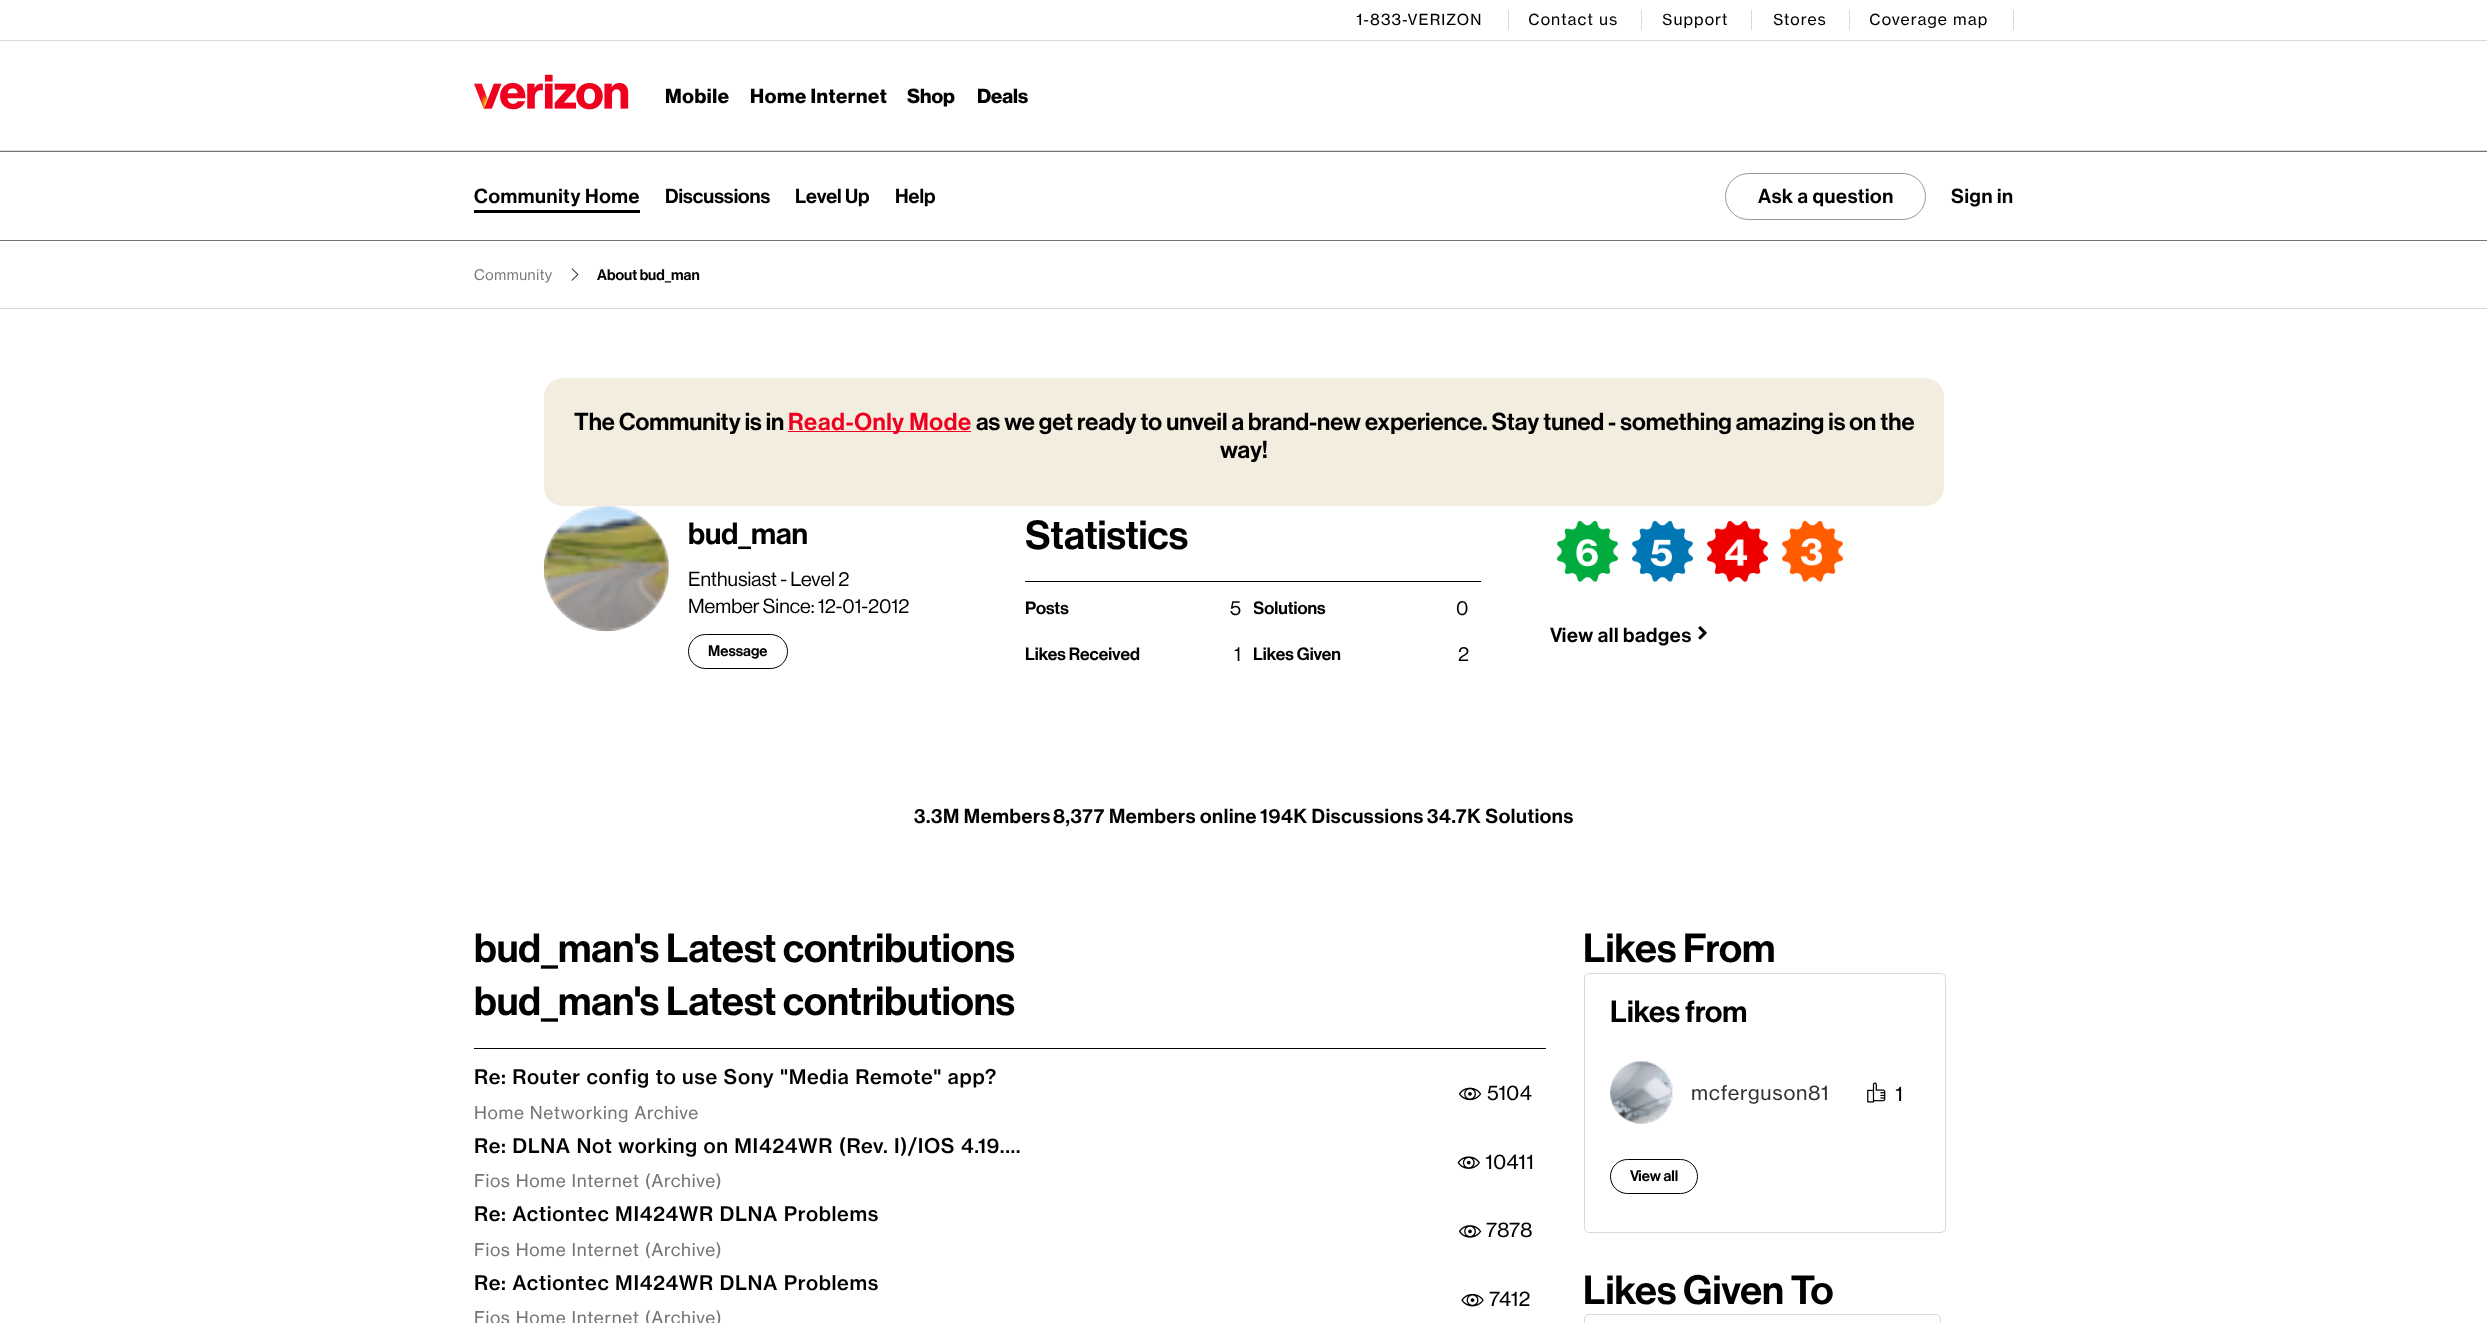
<svg xmlns="http://www.w3.org/2000/svg" width="2487" height="1323" viewBox="0 0 2487 1323">
  <defs>
    <clipPath id="clip1"><path d="M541 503H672V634H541ZM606.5 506C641 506 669 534 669 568.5C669 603 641 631 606.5 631C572 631 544 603 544 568.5C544 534 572 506 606.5 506Z" clip-rule="evenodd"/></clipPath>
    <clipPath id="clip2"><rect x="1254" y="595" width="136" height="46"/></clipPath>
    <clipPath id="clip3"><path d="M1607 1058H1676V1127H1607ZM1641.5 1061C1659 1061 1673 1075 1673 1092.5C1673 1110 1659 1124 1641.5 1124C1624 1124 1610 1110 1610 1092.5C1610 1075 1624 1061 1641.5 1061Z" clip-rule="evenodd"/></clipPath>
  </defs>
  <rect width="100%" height="100%" fill="rgb(255,255,255)"/>
  <rect x="0" y="150" width="2487" height="1" fill="rgb(216,218,218)"/>
  <text x="1356" y="25" font-family="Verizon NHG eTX" font-size="15" letter-spacing="0.62" fill="rgb(0,0,0)">1-833-VERIZON</text>
  <rect x="1508" y="10" width="1" height="20" fill="rgb(216,218,218)"/>
  <text x="1528" y="25" font-family="Verizon NHG eTX" font-size="15" letter-spacing="0.62" fill="rgb(0,0,0)">Contact us</text>
  <rect x="1641" y="10" width="1" height="20" fill="rgb(216,218,218)"/>
  <text x="1662" y="25" font-family="Verizon NHG eTX" font-size="15" letter-spacing="0.62" fill="rgb(0,0,0)">Support</text>
  <rect x="1751" y="10" width="1" height="20" fill="rgb(216,218,218)"/>
  <text x="1773" y="25" font-family="Verizon NHG eTX" font-size="15" letter-spacing="0.62" fill="rgb(0,0,0)">Stores</text>
  <rect x="1849" y="10" width="1" height="20" fill="rgb(216,218,218)"/>
  <text x="1869" y="25" font-family="Verizon NHG eTX" font-size="15" letter-spacing="0.62" fill="rgb(0,0,0)">Coverage map</text>
  <rect x="2013" y="10" width="1" height="20" fill="rgb(216,218,218)"/>
  <image x="474" y="74" width="155" height="36" href="pic1.png"/>
  <g font-family="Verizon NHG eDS" font-size="20" font-weight="bold" letter-spacing="0.62" fill="rgb(0,0,0)">
    <text x="665" y="103">Mobile</text>
    <text x="750" y="103">Home Internet</text>
  </g>
  <g font-family="Verizon NHG eDS" font-size="20" font-weight="bold" fill="rgb(0,0,0)">
    <text x="907" y="103">Shop</text>
    <text x="977" y="103">Deals</text>
  </g>
  <rect x="0" y="40" width="2487" height="1" fill="rgb(216,218,218)"/>
  <rect x="0" y="151" width="2487" height="1" fill="rgb(116,118,118)"/>
  <text x="474" y="203" font-family="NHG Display" font-size="20" font-weight="500" letter-spacing="0.62" fill="rgb(0,0,0)">Community Home</text>
  <rect x="474" y="210" width="166" height="3" fill="rgb(0,0,0)"/>
  <g font-family="NHG Display" font-size="20" font-weight="500" fill="rgb(0,0,0)">
    <text x="665" y="203">Discussions</text>
    <text x="795" y="203">Level Up</text>
    <text x="895" y="203">Help</text>
  </g>
  <rect x="1725.5" y="173.5" width="200" height="46" rx="23" fill="none" stroke="rgb(151,151,151)"/>
  <g font-family="NHG Display" font-size="20" font-weight="500" letter-spacing="0.62" fill="rgb(0,0,0)">
    <text x="1758" y="203">Ask a question</text>
    <text x="1951" y="203">Sign in</text>
  </g>
  <rect x="0" y="308" width="2487" height="1" fill="rgb(216,218,218)"/>
  <rect x="0" y="240" width="2487" height="1" fill="rgb(116,118,118)"/>
  <text x="474" y="280" font-family="NHG Display" font-size="15" letter-spacing="0.62" fill="rgb(116,118,118)">Community</text>
  <image x="571" y="268" width="8" height="13" href="pic2.png"/>
  <text x="597" y="280" font-family="NHG Display" font-size="15" font-weight="500" fill="rgb(0,0,0)">About bud_man</text>
  <rect x="544" y="378" width="1400" height="128" rx="19" fill="rgb(243,237,224)"/>
  <text x="574" y="430" font-family="NHG Display" font-size="24" font-weight="500" fill="rgb(0,0,0)">The Community is in</text>
  <rect x="788" y="431" width="183" height="1" fill="rgb(238,0,30)"/>
  <text x="788" y="430" font-family="NHG Display" font-size="24" font-weight="500" letter-spacing="0.62" fill="rgb(238,0,30)">Read-Only Mode</text>
  <g font-family="NHG Display" font-size="24" font-weight="500" fill="rgb(0,0,0)">
    <text x="976" y="430">as we get ready to unveil a brand-new experience. Stay tuned - something amazing is on the</text>
    <text x="1220" y="458">way!</text>
  </g>
  <g clip-path="url(#clip1)">
    <rect x="544" y="506" width="125" height="125" rx="62.5" fill="rgb(153,153,153)" filter="blur(0.5px)"/>
  </g>
  <image x="543" y="506" width="126" height="126" href="pic3.png"/>
  <text x="688" y="544" font-family="NHG Display" font-size="30" font-weight="500" fill="rgb(0,0,0)">bud_man</text>
  <g font-family="NHG Display" font-size="20" fill="rgb(0,0,0)">
    <text>
      <tspan x="688" y="586">Enthusiast - Level 2</tspan>
      <tspan x="688" y="613">Member Since: 12-01-2012</tspan>
    </text>
  </g>
  <rect x="688.5" y="634.5" width="99" height="34" rx="17" fill="none" stroke="rgb(0,0,0)"/>
  <text x="708" y="656" font-family="NHG Display" font-size="15" font-weight="500" fill="rgb(0,0,0)">Message</text>
  <rect x="1025" y="581" width="456" height="1" fill="rgb(0,0,0)"/>
  <text x="1025" y="549" font-family="NHG Display" font-size="40" font-weight="500" fill="rgb(0,0,0)">Statistics</text>
  <text x="1025" y="614" font-family="NHG Display" font-size="17.5" font-weight="500" fill="rgb(0,0,0)">Posts</text>
  <text x="1230" y="615" font-family="NHG Display" font-size="20" fill="rgb(0,0,0)">5</text>
  <g clip-path="url(#clip2)">
    <text x="1253" y="614" font-family="NHG Display" font-size="17.5" font-weight="500" fill="rgb(0,0,0)">Solutions</text>
  </g>
  <text x="1456" y="615" font-family="NHG Display" font-size="20" fill="rgb(0,0,0)">0</text>
  <text x="1025" y="660" font-family="NHG Display" font-size="17.5" font-weight="500" fill="rgb(0,0,0)">Likes Received</text>
  <text x="1234" y="661" font-family="NHG Display" font-size="20" fill="rgb(0,0,0)">1</text>
  <text x="1253" y="660" font-family="NHG Display" font-size="17.5" font-weight="500" fill="rgb(0,0,0)">Likes Given</text>
  <text x="1458" y="661" font-family="NHG Display" font-size="20" fill="rgb(0,0,0)">2</text>
  <image x="1557" y="520" width="61" height="62" href="pic4.png"/>
  <image x="1632" y="520" width="61" height="62" href="pic5.png"/>
  <image x="1707" y="520" width="61" height="62" href="pic6.png"/>
  <image x="1782" y="520" width="61" height="62" href="pic7.png"/>
  <text x="1550" y="642" font-family="NHG Display" font-size="20" font-weight="500" letter-spacing="0.62" fill="rgb(0,0,0)">View all badges</text>
  <image x="1698" y="626" width="9" height="14" href="pic8.png"/>
  <g font-family="NHG Display" font-size="20" font-weight="500" letter-spacing="0.62" fill="rgb(0,0,0)">
    <text x="914" y="823">3.3M Members</text>
    <text x="1053" y="823">8,377 Members online</text>
    <text x="1260" y="823">194K Discussions</text>
    <text x="1427" y="823">34.7K Solutions</text>
  </g>
  <text x="474" y="962" font-family="NHG Display" font-size="40" font-weight="500" fill="rgb(0,0,0)">bud_man's Latest contributions</text>
  <rect x="474" y="1048" width="1072" height="1" fill="rgb(0,0,0)"/>
  <text x="474" y="1015" font-family="NHG Display" font-size="40" font-weight="500" fill="rgb(0,0,0)">bud_man's Latest contributions</text>
  <text x="474" y="1084" font-family="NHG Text" font-size="20" font-weight="500" letter-spacing="0.62" fill="rgb(0,0,0)">Re: Router config to use Sony "Media Remote" app?</text>
  <text x="474" y="1119" font-family="NHG Text" font-size="17.4" letter-spacing="0.62" fill="rgb(116,118,118)">Home Networking Archive</text>
  <image x="1458" y="1087" width="24" height="14" href="pic9.png"/>
  <text x="1487" y="1100" font-family="NHG Text" font-size="20" fill="rgb(0,0,0)">5104</text>
  <text x="474" y="1153" font-family="NHG Text" font-size="20" font-weight="500" letter-spacing="0.62" fill="rgb(0,0,0)">Re: DLNA Not working on MI424WR (Rev. I)/IOS 4.19....</text>
  <text x="474" y="1187" font-family="NHG Text" font-size="17.4" letter-spacing="0.62" fill="rgb(116,118,118)">Fios Home Internet (Archive)</text>
  <image x="1457" y="1156" width="23" height="13" href="pic10.png"/>
  <text x="1485" y="1169" font-family="NHG Text" font-size="20" fill="rgb(0,0,0)">10411</text>
  <text x="474" y="1221" font-family="NHG Text" font-size="20" font-weight="500" letter-spacing="0.62" fill="rgb(0,0,0)">Re: Actiontec MI424WR DLNA Problems</text>
  <text x="474" y="1256" font-family="NHG Text" font-size="17.4" letter-spacing="0.62" fill="rgb(116,118,118)">Fios Home Internet (Archive)</text>
  <image x="1458" y="1225" width="24" height="13" href="pic11.png"/>
  <text x="1486" y="1237" font-family="NHG Text" font-size="20" fill="rgb(0,0,0)">7878</text>
  <text x="474" y="1290" font-family="NHG Text" font-size="20" font-weight="500" letter-spacing="0.62" fill="rgb(0,0,0)">Re: Actiontec MI424WR DLNA Problems</text>
  <text x="474" y="1324" font-family="NHG Text" font-size="17.4" letter-spacing="0.62" fill="rgb(116,118,118)">Fios Home Internet (Archive)</text>
  <image x="1461" y="1293" width="23" height="14" href="pic12.png"/>
  <text x="1489" y="1306" font-family="NHG Text" font-size="20" fill="rgb(0,0,0)">7412</text>
  <text x="1583" y="962" font-family="NHG Display" font-size="40" font-weight="500" fill="rgb(0,0,0)">Likes From</text>
  <rect x="1584.5" y="973.5" width="361" height="259" rx="4.5" fill="none" stroke="rgb(215,218,218)"/>
  <text x="1610" y="1022" font-family="NHG Display" font-size="30" font-weight="500" fill="rgb(0,0,0)">Likes from</text>
  <g clip-path="url(#clip3)">
    <rect x="1610" y="1061" width="63" height="63" rx="31.5" fill="rgb(153,153,153)" filter="blur(0.5px)"/>
  </g>
  <image x="1610" y="1061" width="63" height="63" href="pic13.png"/>
  <text x="1691" y="1100" font-family="NHG Text" font-size="20" letter-spacing="0.62" fill="rgb(51,51,51)">mcferguson81</text>
  <image x="1867" y="1082" width="19" height="21" href="pic14.png"/>
  <text x="1895" y="1101" font-family="NHG Text" font-size="20" fill="rgb(0,0,0)">1</text>
  <rect x="1610.5" y="1159.5" width="87" height="34" rx="17" fill="none" stroke="rgb(0,0,0)"/>
  <text x="1630" y="1181" font-family="NHG Display" font-size="15" font-weight="500" fill="rgb(0,0,0)">View all</text>
  <text x="1583" y="1304" font-family="NHG Display" font-size="40" font-weight="500" fill="rgb(0,0,0)">Likes Given To</text>
  <rect x="1584.5" y="1314.5" width="356" height="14" rx="4.5" fill="none" stroke="rgb(215,218,218)"/>
</svg>
